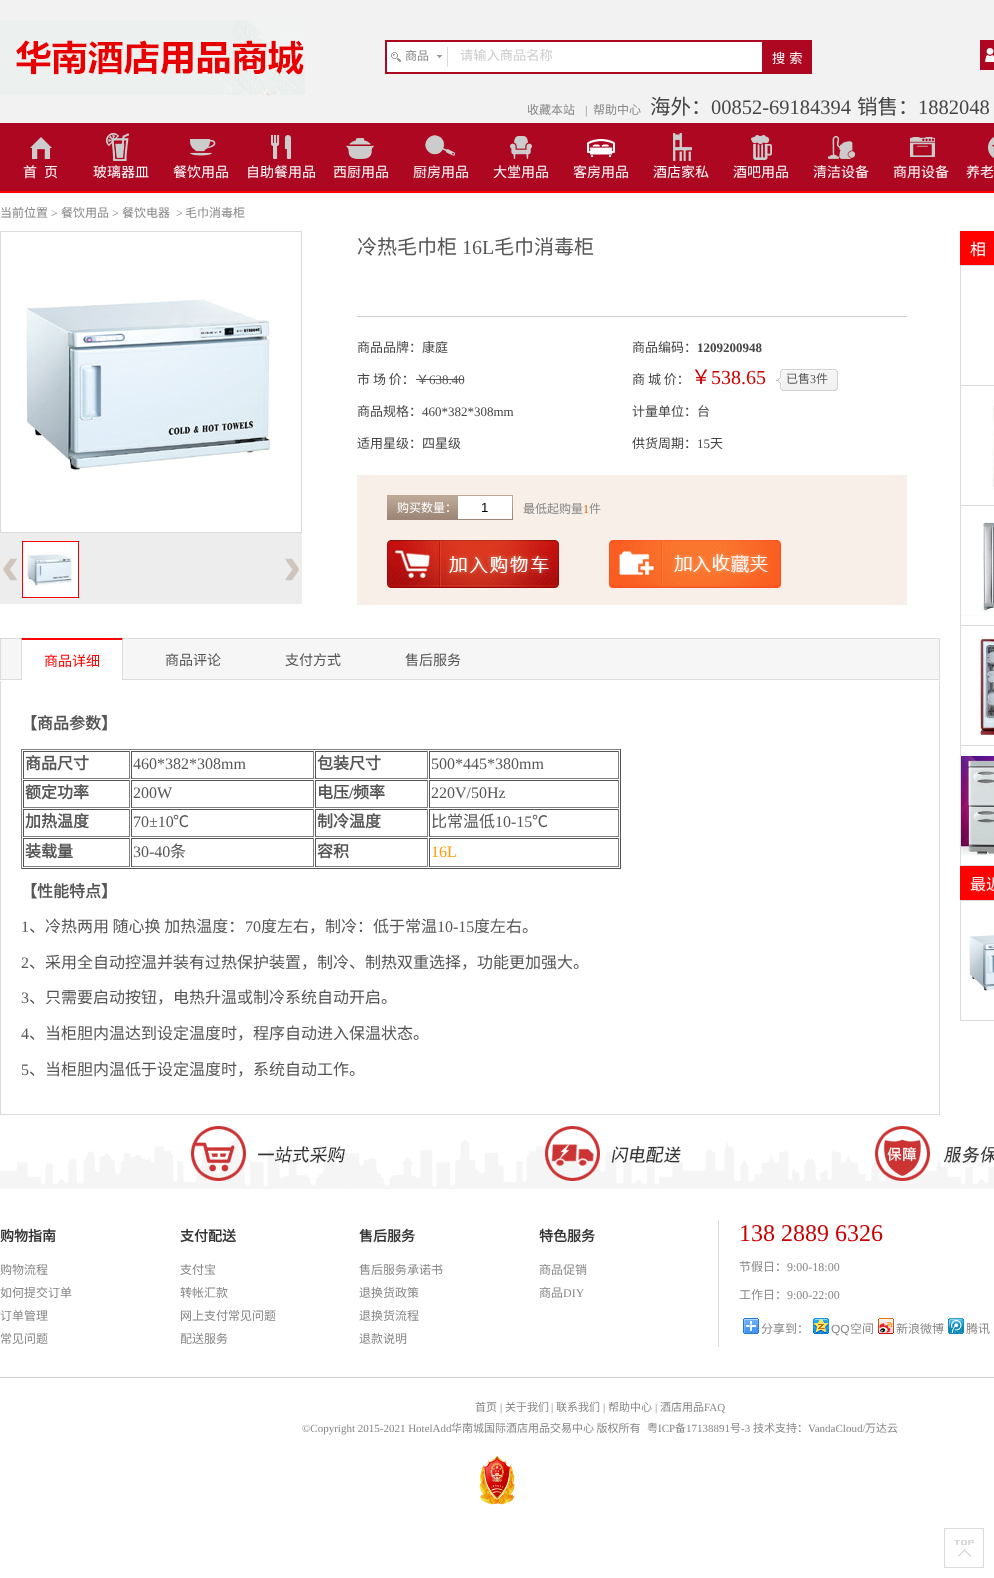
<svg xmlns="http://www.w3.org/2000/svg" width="994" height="1578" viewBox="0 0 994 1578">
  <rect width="100%" height="100%" fill="rgb(255,255,255)"/>
  <rect x="0" y="0" width="994" height="123" fill="rgb(242,242,242)"/>
  <image x="0" y="20" width="305" height="75" href="pic1.png"/>
  <rect x="387" y="42" width="375" height="30" fill="rgb(255,255,255)"/>
  <rect x="385" y="40" width="427" height="2" fill="rgb(174,7,33)"/>
  <rect x="385" y="72" width="427" height="2" fill="rgb(174,7,33)"/>
  <rect x="385" y="40" width="2" height="34" fill="rgb(174,7,33)"/>
  <image x="391" y="47" width="57" height="20" href="pic2.png"/>
  <text x="405" y="60" font-family="Noto Sans CJK SC" font-size="12" fill="rgb(135,135,135)">商品</text>
  <text x="460" y="60" font-family="Noto Sans CJK SC" font-size="13.25" fill="rgb(204,204,204)">请输入商品名称</text>
  <rect x="762" y="42" width="50" height="30" fill="rgb(174,7,33)"/>
  <text x="772" y="63" word-spacing="1" font-family="Noto Sans CJK SC" font-size="13.25" fill="rgb(255,255,255)">搜 索</text>
  <rect x="980" y="40" width="14" height="30" fill="rgb(174,7,33)"/>
  <image x="985" y="48" width="9" height="14" href="pic3.png"/>
  <text x="527" y="114" font-family="Noto Sans CJK SC" font-size="12" fill="rgb(135,135,135)">收藏本站</text>
  <text x="585" y="114" font-family="Liberation Serif" font-size="12" fill="rgb(135,135,135)">|</text>
  <text x="593" y="114" font-family="Noto Sans CJK SC" font-size="12" fill="rgb(135,135,135)">帮助中心</text>
  <text x="650" y="114" font-family="Noto Sans CJK SC" font-size="20.5" fill="rgb(70,70,70)">海外：</text>
  <text x="711" y="114" font-family="Liberation Serif" font-size="20.5" fill="rgb(70,70,70)">00852-69184394</text>
  <text x="857" y="114" font-family="Noto Sans CJK SC" font-size="20.5" fill="rgb(70,70,70)">销售：</text>
  <text x="918" y="114" font-family="Liberation Serif" font-size="20.5" fill="rgb(70,70,70)">1882048</text>
  <rect x="0" y="123" width="994" height="68" fill="rgb(174,7,33)"/>
  <image x="30" y="137" width="22" height="22" href="pic4.png"/>
  <g font-family="Noto Sans CJK SC" font-size="14" fill="rgb(255,255,255)">
    <text x="23" y="177">首</text>
    <text x="44" y="177">页</text>
  </g>
  <image x="106" y="133" width="23" height="28" href="pic5.png"/>
  <text x="93" y="177" font-family="Noto Sans CJK SC" font-size="14" fill="rgb(255,255,255)">玻璃器皿</text>
  <image x="190" y="139" width="26" height="17" href="pic6.png"/>
  <text x="173" y="177" font-family="Noto Sans CJK SC" font-size="14" fill="rgb(255,255,255)">餐饮用品</text>
  <image x="271" y="135" width="20" height="24" href="pic7.png"/>
  <text x="246" y="177" font-family="Noto Sans CJK SC" font-size="14" fill="rgb(255,255,255)">自助餐用品</text>
  <image x="346" y="138" width="28" height="21" href="pic8.png"/>
  <text x="333" y="177" font-family="Noto Sans CJK SC" font-size="14" fill="rgb(255,255,255)">西厨用品</text>
  <image x="425" y="135" width="30" height="21" href="pic9.png"/>
  <text x="413" y="177" font-family="Noto Sans CJK SC" font-size="14" fill="rgb(255,255,255)">厨房用品</text>
  <image x="510" y="136" width="22" height="23" href="pic10.png"/>
  <text x="493" y="177" font-family="Noto Sans CJK SC" font-size="14" fill="rgb(255,255,255)">大堂用品</text>
  <image x="587" y="139" width="28" height="18" href="pic11.png"/>
  <text x="573" y="177" font-family="Noto Sans CJK SC" font-size="14" fill="rgb(255,255,255)">客房用品</text>
  <image x="673" y="133" width="19" height="28" href="pic12.png"/>
  <text x="653" y="177" font-family="Noto Sans CJK SC" font-size="14" fill="rgb(255,255,255)">酒店家私</text>
  <image x="751" y="135" width="21" height="25" href="pic13.png"/>
  <text x="733" y="177" font-family="Noto Sans CJK SC" font-size="14" fill="rgb(255,255,255)">酒吧用品</text>
  <image x="828" y="136" width="27" height="23" href="pic14.png"/>
  <text x="813" y="177" font-family="Noto Sans CJK SC" font-size="14" fill="rgb(255,255,255)">清洁设备</text>
  <image x="910" y="137" width="25" height="20" href="pic15.png"/>
  <text x="893" y="177" font-family="Noto Sans CJK SC" font-size="14" fill="rgb(255,255,255)">商用设备</text>
  <image x="988" y="137" width="6" height="21" href="pic16.png"/>
  <text x="966" y="177" font-family="Noto Sans CJK SC" font-size="14" fill="rgb(255,255,255)">养老</text>
  <rect x="0" y="191" width="994" height="2" fill="rgb(255,1,1)"/>
  <text x="0" y="217" font-family="Noto Sans CJK SC" font-size="12" fill="rgb(135,135,135)">当前位置</text>
  <text x="51" y="217" font-family="Liberation Serif" font-size="12" fill="rgb(135,135,135)">&gt;</text>
  <text x="61" y="217" font-family="Noto Sans CJK SC" font-size="12" fill="rgb(135,135,135)">餐饮用品</text>
  <text x="112" y="217" font-family="Liberation Serif" font-size="12" fill="rgb(135,135,135)">&gt;</text>
  <text x="122" y="217" font-family="Noto Sans CJK SC" font-size="12" fill="rgb(135,135,135)">餐饮电器</text>
  <text x="176" y="217" font-family="Liberation Serif" font-size="12" fill="rgb(135,135,135)">&gt;</text>
  <text x="185" y="217" font-family="Noto Sans CJK SC" font-size="12" fill="rgb(135,135,135)">毛巾消毒柜</text>
  <text x="357" y="254" font-family="Noto Sans CJK SC" font-size="20" fill="rgb(86,86,86)">冷热毛巾柜</text>
  <text x="462" y="254" font-family="Liberation Serif" font-size="20" fill="rgb(86,86,86)">16L</text>
  <text x="494" y="254" font-family="Noto Sans CJK SC" font-size="20" fill="rgb(86,86,86)">毛巾消毒柜</text>
  <rect x="357" y="316" width="550" height="1" fill="rgb(204,204,204)"/>
  <g font-family="Noto Sans CJK SC" font-size="13" fill="rgb(70,70,70)">
    <text x="357" y="352">商品品牌：康庭</text>
    <text x="632" y="352">商品编码：</text>
  </g>
  <text x="697" y="352" font-family="Liberation Serif" font-size="13" font-weight="bold" fill="rgb(70,70,70)">1209200948</text>
  <text x="357" y="384" font-family="Noto Sans CJK SC" font-size="13" fill="rgb(70,70,70)">市 场 价：</text>
  <text x="416" y="384" font-family="Noto Sans CJK SC" font-size="13" fill="rgb(86,86,86)">￥</text>
  <rect x="416" y="379" width="48" height="1" fill="rgb(86,86,86)"/>
  <text x="429" y="384" font-family="Liberation Serif" font-size="13" fill="rgb(86,86,86)">638.40</text>
  <text x="632" y="384" font-family="Noto Sans CJK SC" font-size="13" fill="rgb(70,70,70)">商 城 价：</text>
  <text x="691" y="384" font-family="Noto Sans CJK SC" font-size="20" fill="rgb(204,0,0)">￥</text>
  <text x="711" y="384" font-family="Liberation Serif" font-size="20" fill="rgb(204,0,0)">538.65</text>
  <image x="776" y="369" width="59" height="22" href="pic17.png"/>
  <image x="835" y="369" width="3" height="22" href="pic18.png"/>
  <text x="786" y="383" font-family="Noto Sans CJK SC" font-size="12" fill="rgb(86,86,86)">已售</text>
  <text x="810" y="383" font-family="Liberation Serif" font-size="12" fill="rgb(86,86,86)">3</text>
  <text x="816" y="383" font-family="Noto Sans CJK SC" font-size="12" fill="rgb(86,86,86)">件</text>
  <text x="357" y="416" font-family="Noto Sans CJK SC" font-size="13" fill="rgb(70,70,70)">商品规格：</text>
  <text x="422" y="416" font-family="Liberation Serif" font-size="13" fill="rgb(70,70,70)">460*382*308mm</text>
  <g font-family="Noto Sans CJK SC" font-size="13" fill="rgb(70,70,70)">
    <text x="632" y="416">计量单位：台</text>
    <text x="357" y="448">适用星级：四星级</text>
    <text x="632" y="448">供货周期：</text>
  </g>
  <text x="697" y="448" font-family="Liberation Serif" font-size="13" fill="rgb(70,70,70)">15</text>
  <text x="710" y="448" font-family="Noto Sans CJK SC" font-size="13" fill="rgb(70,70,70)">天</text>
  <rect x="357" y="475" width="550" height="130" fill="rgb(247,239,232)"/>
  <image x="387" y="495" width="126" height="25" href="pic19.png"/>
  <text x="397" y="512" font-family="Noto Sans CJK SC" font-size="12" fill="rgb(255,255,255)">购买数量：</text>
  <rect x="458" y="496" width="54" height="23" fill="rgb(255,255,255)"/>
  <text x="481" y="512" font-family="Liberation Sans" font-size="13.25" fill="rgb(0,0,0)">1</text>
  <text x="523" y="513" font-family="Noto Sans CJK SC" font-size="12" fill="rgb(135,135,135)">最低起购量</text>
  <text x="583" y="513" font-family="Liberation Serif" font-size="12" fill="rgb(235,95,0)">1</text>
  <text x="589" y="513" font-family="Noto Sans CJK SC" font-size="12" fill="rgb(135,135,135)">件</text>
  <image x="387" y="540" width="172" height="48" href="pic20.png"/>
  <image x="609" y="540" width="172" height="48" href="pic21.png"/>
  <rect x="0.5" y="231.5" width="301" height="301" fill="none" stroke="rgb(219,219,219)"/>
  <image x="25" y="299" width="248" height="173" href="pic22.png"/>
  <rect x="0" y="533" width="302" height="71" fill="rgb(237,237,237)"/>
  <text x="1" y="584" font-family="Liberation Sans" font-size="55" font-weight="bold" fill="rgb(207,197,188)">‹</text>
  <rect x="22.5" y="541.5" width="56" height="56" fill="rgb(255,255,255)" stroke="rgb(255,0,0)"/>
  <image x="23" y="552" width="50" height="34" href="pic23.png"/>
  <text x="283" y="584" font-family="Liberation Sans" font-size="55" font-weight="bold" fill="rgb(207,197,188)">›</text>
  <rect x="0.5" y="638.5" width="939" height="41" fill="rgb(246,246,246)" stroke="rgb(219,219,219)"/>
  <rect x="21" y="638" width="102" height="42" fill="rgb(255,255,255)"/>
  <path d="M21 638H123L122 640H22Z" fill="rgb(255,1,1)"/>
  <path d="M123 638V680H122V640Z" fill="rgb(219,219,219)"/>
  <path d="M21 680V638L22 640V680Z" fill="rgb(219,219,219)"/>
  <text x="44" y="666" font-family="Noto Sans CJK SC" font-size="14" fill="rgb(255,1,1)">商品详细</text>
  <g font-family="Noto Sans CJK SC" font-size="14" fill="rgb(86,86,86)">
    <text x="165" y="665">商品评论</text>
    <text x="285" y="665">支付方式</text>
    <text x="405" y="665">售后服务</text>
  </g>
  <rect x="939" y="681" width="1" height="434" fill="rgb(219,219,219)"/>
  <rect x="0" y="1114" width="940" height="1" fill="rgb(219,219,219)"/>
  <rect x="0" y="681" width="1" height="434" fill="rgb(219,219,219)"/>
  <text x="21" y="729" font-family="Noto Sans CJK SC" font-size="16" font-weight="bold" fill="rgb(86,86,86)">【商品参数】</text>
  <rect x="21" y="749" width="600" height="1" fill="rgb(128,128,128)"/>
  <rect x="620" y="749" width="1" height="120" fill="rgb(85,85,85)"/>
  <rect x="21" y="868" width="600" height="1" fill="rgb(85,85,85)"/>
  <rect x="21" y="749" width="1" height="120" fill="rgb(128,128,128)"/>
  <rect x="23" y="751" width="107" height="1" fill="rgb(85,85,85)"/>
  <rect x="129" y="751" width="1" height="28" fill="rgb(128,128,128)"/>
  <rect x="23" y="778" width="107" height="1" fill="rgb(128,128,128)"/>
  <rect x="23" y="751" width="1" height="28" fill="rgb(85,85,85)"/>
  <text x="25" y="769" font-family="Noto Sans CJK SC" font-size="16" font-weight="bold" fill="rgb(86,86,86)">商品尺寸</text>
  <rect x="131" y="751" width="183" height="1" fill="rgb(85,85,85)"/>
  <rect x="313" y="751" width="1" height="28" fill="rgb(128,128,128)"/>
  <rect x="131" y="778" width="183" height="1" fill="rgb(128,128,128)"/>
  <rect x="131" y="751" width="1" height="28" fill="rgb(85,85,85)"/>
  <text x="133" y="769" font-family="Liberation Serif" font-size="16" fill="rgb(86,86,86)">460*382*308mm</text>
  <rect x="315" y="751" width="113" height="1" fill="rgb(85,85,85)"/>
  <rect x="427" y="751" width="1" height="28" fill="rgb(128,128,128)"/>
  <rect x="315" y="778" width="113" height="1" fill="rgb(128,128,128)"/>
  <rect x="315" y="751" width="1" height="28" fill="rgb(85,85,85)"/>
  <text x="317" y="769" font-family="Noto Sans CJK SC" font-size="16" font-weight="bold" fill="rgb(86,86,86)">包装尺寸</text>
  <rect x="429" y="751" width="190" height="1" fill="rgb(85,85,85)"/>
  <rect x="618" y="751" width="1" height="28" fill="rgb(128,128,128)"/>
  <rect x="429" y="778" width="190" height="1" fill="rgb(128,128,128)"/>
  <rect x="429" y="751" width="1" height="28" fill="rgb(85,85,85)"/>
  <text x="431" y="769" font-family="Liberation Serif" font-size="16" fill="rgb(86,86,86)">500*445*380mm</text>
  <rect x="23" y="780" width="107" height="1" fill="rgb(85,85,85)"/>
  <rect x="129" y="780" width="1" height="28" fill="rgb(128,128,128)"/>
  <rect x="23" y="807" width="107" height="1" fill="rgb(128,128,128)"/>
  <rect x="23" y="780" width="1" height="28" fill="rgb(85,85,85)"/>
  <text x="25" y="798" font-family="Noto Sans CJK SC" font-size="16" font-weight="bold" fill="rgb(86,86,86)">额定功率</text>
  <rect x="131" y="780" width="183" height="1" fill="rgb(85,85,85)"/>
  <rect x="313" y="780" width="1" height="28" fill="rgb(128,128,128)"/>
  <rect x="131" y="807" width="183" height="1" fill="rgb(128,128,128)"/>
  <rect x="131" y="780" width="1" height="28" fill="rgb(85,85,85)"/>
  <text x="133" y="798" font-family="Liberation Serif" font-size="16" fill="rgb(86,86,86)">200W</text>
  <rect x="315" y="780" width="113" height="1" fill="rgb(85,85,85)"/>
  <rect x="427" y="780" width="1" height="28" fill="rgb(128,128,128)"/>
  <rect x="315" y="807" width="113" height="1" fill="rgb(128,128,128)"/>
  <rect x="315" y="780" width="1" height="28" fill="rgb(85,85,85)"/>
  <text x="317" y="798" font-family="Noto Sans CJK SC" font-size="16" font-weight="bold" fill="rgb(86,86,86)">电压</text>
  <text x="349" y="798" font-family="Liberation Serif" font-size="16" font-weight="bold" fill="rgb(86,86,86)">/</text>
  <text x="353" y="798" font-family="Noto Sans CJK SC" font-size="16" font-weight="bold" fill="rgb(86,86,86)">频率</text>
  <rect x="429" y="780" width="190" height="1" fill="rgb(85,85,85)"/>
  <rect x="618" y="780" width="1" height="28" fill="rgb(128,128,128)"/>
  <rect x="429" y="807" width="190" height="1" fill="rgb(128,128,128)"/>
  <rect x="429" y="780" width="1" height="28" fill="rgb(85,85,85)"/>
  <text x="431" y="798" font-family="Liberation Serif" font-size="16" fill="rgb(86,86,86)">220V/50Hz</text>
  <rect x="23" y="809" width="107" height="1" fill="rgb(85,85,85)"/>
  <rect x="129" y="809" width="1" height="28" fill="rgb(128,128,128)"/>
  <rect x="23" y="836" width="107" height="1" fill="rgb(128,128,128)"/>
  <rect x="23" y="809" width="1" height="28" fill="rgb(85,85,85)"/>
  <text x="25" y="827" font-family="Noto Sans CJK SC" font-size="16" font-weight="bold" fill="rgb(86,86,86)">加热温度</text>
  <rect x="131" y="809" width="183" height="1" fill="rgb(85,85,85)"/>
  <rect x="313" y="809" width="1" height="28" fill="rgb(128,128,128)"/>
  <rect x="131" y="836" width="183" height="1" fill="rgb(128,128,128)"/>
  <rect x="131" y="809" width="1" height="28" fill="rgb(85,85,85)"/>
  <text x="133" y="827" font-family="Liberation Serif" font-size="16" fill="rgb(86,86,86)">70±10</text>
  <text x="173" y="827" font-family="Noto Sans CJK SC" font-size="16" fill="rgb(86,86,86)">℃</text>
  <rect x="315" y="809" width="113" height="1" fill="rgb(85,85,85)"/>
  <rect x="427" y="809" width="1" height="28" fill="rgb(128,128,128)"/>
  <rect x="315" y="836" width="113" height="1" fill="rgb(128,128,128)"/>
  <rect x="315" y="809" width="1" height="28" fill="rgb(85,85,85)"/>
  <text x="317" y="827" font-family="Noto Sans CJK SC" font-size="16" font-weight="bold" fill="rgb(86,86,86)">制冷温度</text>
  <rect x="429" y="809" width="190" height="1" fill="rgb(85,85,85)"/>
  <rect x="618" y="809" width="1" height="28" fill="rgb(128,128,128)"/>
  <rect x="429" y="836" width="190" height="1" fill="rgb(128,128,128)"/>
  <rect x="429" y="809" width="1" height="28" fill="rgb(85,85,85)"/>
  <text x="431" y="827" font-family="Noto Sans CJK SC" font-size="16" fill="rgb(86,86,86)">比常温低</text>
  <text x="495" y="827" font-family="Liberation Serif" font-size="16" fill="rgb(86,86,86)">10-15</text>
  <text x="532" y="827" font-family="Noto Sans CJK SC" font-size="16" fill="rgb(86,86,86)">℃</text>
  <rect x="23" y="838" width="107" height="1" fill="rgb(85,85,85)"/>
  <rect x="129" y="838" width="1" height="29" fill="rgb(128,128,128)"/>
  <rect x="23" y="866" width="107" height="1" fill="rgb(128,128,128)"/>
  <rect x="23" y="838" width="1" height="29" fill="rgb(85,85,85)"/>
  <text x="25" y="857" font-family="Noto Sans CJK SC" font-size="16" font-weight="bold" fill="rgb(86,86,86)">装载量</text>
  <rect x="131" y="838" width="183" height="1" fill="rgb(85,85,85)"/>
  <rect x="313" y="838" width="1" height="29" fill="rgb(128,128,128)"/>
  <rect x="131" y="866" width="183" height="1" fill="rgb(128,128,128)"/>
  <rect x="131" y="838" width="1" height="29" fill="rgb(85,85,85)"/>
  <text x="133" y="857" font-family="Liberation Serif" font-size="16" fill="rgb(86,86,86)">30-40</text>
  <text x="170" y="857" font-family="Noto Sans CJK SC" font-size="16" fill="rgb(86,86,86)">条</text>
  <rect x="315" y="838" width="113" height="1" fill="rgb(85,85,85)"/>
  <rect x="427" y="838" width="1" height="29" fill="rgb(128,128,128)"/>
  <rect x="315" y="866" width="113" height="1" fill="rgb(128,128,128)"/>
  <rect x="315" y="838" width="1" height="29" fill="rgb(85,85,85)"/>
  <text x="317" y="857" font-family="Noto Sans CJK SC" font-size="16" font-weight="bold" fill="rgb(86,86,86)">容积</text>
  <rect x="429" y="838" width="190" height="1" fill="rgb(85,85,85)"/>
  <rect x="618" y="838" width="1" height="29" fill="rgb(128,128,128)"/>
  <rect x="429" y="866" width="190" height="1" fill="rgb(128,128,128)"/>
  <rect x="429" y="838" width="1" height="29" fill="rgb(85,85,85)"/>
  <text x="431" y="857" font-family="Liberation Serif" font-size="16" fill="rgb(255,153,0)">16L</text>
  <text x="21" y="897" font-family="Noto Sans CJK SC" font-size="16" font-weight="bold" fill="rgb(86,86,86)">【性能特点】</text>
  <text x="21" y="932" font-family="Liberation Serif" font-size="16" fill="rgb(86,86,86)">1</text>
  <text x="29" y="932" font-family="Noto Sans CJK SC" font-size="16" fill="rgb(86,86,86)">、冷热两用 随心换 加热温度：</text>
  <text x="245" y="932" font-family="Liberation Serif" font-size="16" fill="rgb(86,86,86)">70</text>
  <text x="261" y="932" font-family="Noto Sans CJK SC" font-size="16" fill="rgb(86,86,86)">度左右，制冷：低于常温</text>
  <text x="437" y="932" font-family="Liberation Serif" font-size="16" fill="rgb(86,86,86)">10-15</text>
  <text x="474" y="932" font-family="Noto Sans CJK SC" font-size="16" fill="rgb(86,86,86)">度左右。</text>
  <text x="21" y="968" font-family="Liberation Serif" font-size="16" fill="rgb(86,86,86)">2</text>
  <text x="29" y="968" font-family="Noto Sans CJK SC" font-size="16" fill="rgb(86,86,86)">、采用全自动控温并装有过热保护装置，制冷、制热双重选择，功能更加强大。</text>
  <text x="21" y="1003" font-family="Liberation Serif" font-size="16" fill="rgb(86,86,86)">3</text>
  <text x="29" y="1003" font-family="Noto Sans CJK SC" font-size="16" fill="rgb(86,86,86)">、只需要启动按钮，电热升温或制冷系统自动开启。</text>
  <text x="21" y="1039" font-family="Liberation Serif" font-size="16" fill="rgb(86,86,86)">4</text>
  <text x="29" y="1039" font-family="Noto Sans CJK SC" font-size="16" fill="rgb(86,86,86)">、当柜胆内温达到设定温度时，程序自动进入保温状态。</text>
  <text x="21" y="1075" font-family="Liberation Serif" font-size="16" fill="rgb(86,86,86)">5</text>
  <text x="29" y="1075" font-family="Noto Sans CJK SC" font-size="16" fill="rgb(86,86,86)">、当柜胆内温低于设定温度时，系统自动工作。</text>
  <rect x="960" y="231" width="34" height="34" fill="rgb(255,1,1)"/>
  <text x="970" y="255" font-family="Noto Sans CJK SC" font-size="16" fill="rgb(255,255,255)">相</text>
  <rect x="960.5" y="265.5" width="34" height="120" fill="none" stroke="rgb(219,219,219)"/>
  <rect x="992" y="281" width="1" height="1" fill="rgb(250,250,250)"/>
  <rect x="960.5" y="385.5" width="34" height="120" fill="none" stroke="rgb(219,219,219)"/>
  <image x="991" y="402" width="3" height="88" href="pic24.png"/>
  <rect x="960.5" y="505.5" width="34" height="120" fill="none" stroke="rgb(219,219,219)"/>
  <image x="961" y="521" width="33" height="95" href="pic25.png"/>
  <rect x="960.5" y="625.5" width="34" height="120" fill="none" stroke="rgb(219,219,219)"/>
  <image x="977" y="636" width="17" height="100" href="pic26.png"/>
  <rect x="960.5" y="745.5" width="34" height="120" fill="none" stroke="rgb(219,219,219)"/>
  <image x="961" y="756" width="33" height="100" href="pic27.png"/>
  <rect x="960" y="866" width="34" height="34" fill="rgb(255,1,1)"/>
  <text x="970" y="890" font-family="Noto Sans CJK SC" font-size="16" fill="rgb(255,255,255)">最近</text>
  <rect x="960.5" y="900.5" width="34" height="120" fill="none" stroke="rgb(219,219,219)"/>
  <image x="967" y="932" width="27" height="59" href="pic28.png"/>
  <image x="0" y="1126" width="994" height="63" href="pic29.png"/>
  <rect x="718" y="1220" width="1" height="127" fill="rgb(219,219,219)"/>
  <text x="0" y="1241" font-family="Noto Sans CJK SC" font-size="14" font-weight="bold" fill="rgb(51,51,51)">购物指南</text>
  <g font-family="Noto Sans CJK SC" font-size="12" fill="rgb(135,135,135)">
    <text>
      <tspan x="0" y="1274">购物流程</tspan>
      <tspan x="0" y="1297">如何提交订单</tspan>
      <tspan x="0" y="1320">订单管理</tspan>
      <tspan x="0" y="1343">常见问题</tspan>
    </text>
  </g>
  <text x="180" y="1241" font-family="Noto Sans CJK SC" font-size="14" font-weight="bold" fill="rgb(51,51,51)">支付配送</text>
  <g font-family="Noto Sans CJK SC" font-size="12" fill="rgb(135,135,135)">
    <text>
      <tspan x="180" y="1274">支付宝</tspan>
      <tspan x="180" y="1297">转帐汇款</tspan>
      <tspan x="180" y="1320">网上支付常见问题</tspan>
      <tspan x="180" y="1343">配送服务</tspan>
    </text>
  </g>
  <text x="359" y="1241" font-family="Noto Sans CJK SC" font-size="14" font-weight="bold" fill="rgb(51,51,51)">售后服务</text>
  <g font-family="Noto Sans CJK SC" font-size="12" fill="rgb(135,135,135)">
    <text>
      <tspan x="359" y="1274">售后服务承诺书</tspan>
      <tspan x="359" y="1297">退换货政策</tspan>
      <tspan x="359" y="1320">退换货流程</tspan>
      <tspan x="359" y="1343">退款说明</tspan>
    </text>
  </g>
  <text x="539" y="1241" font-family="Noto Sans CJK SC" font-size="14" font-weight="bold" fill="rgb(51,51,51)">特色服务</text>
  <g font-family="Noto Sans CJK SC" font-size="12" fill="rgb(135,135,135)">
    <text>
      <tspan x="539" y="1274">商品促销</tspan>
      <tspan x="539" y="1297">商品</tspan>
    </text>
  </g>
  <text x="563" y="1297" font-family="Liberation Serif" font-size="12" fill="rgb(135,135,135)">DIY</text>
  <text x="739" y="1241" font-family="Liberation Serif" font-size="24" fill="rgb(204,0,0)">138 2889 6326</text>
  <text x="739" y="1271" font-family="Noto Sans CJK SC" font-size="12" fill="rgb(135,135,135)">节假日：</text>
  <text x="787" y="1271" font-family="Liberation Serif" font-size="12" fill="rgb(135,135,135)">9:00-18:00</text>
  <text x="739" y="1299" font-family="Noto Sans CJK SC" font-size="12" fill="rgb(135,135,135)">工作日：</text>
  <text x="787" y="1299" font-family="Liberation Serif" font-size="12" fill="rgb(135,135,135)">9:00-22:00</text>
  <image x="743" y="1318" width="16" height="16" href="pic30.png"/>
  <text x="761" y="1333" font-family="Noto Sans CJK SC" font-size="12" fill="rgb(135,135,135)">分享到：</text>
  <image x="813" y="1318" width="16" height="16" href="pic31.png"/>
  <text x="831" y="1333" font-family="Liberation Sans" font-size="12" fill="rgb(135,135,135)">QQ</text>
  <text x="850" y="1333" font-family="Noto Sans CJK SC" font-size="12" fill="rgb(135,135,135)">空间</text>
  <image x="878" y="1318" width="16" height="16" href="pic32.png"/>
  <text x="896" y="1333" font-family="Noto Sans CJK SC" font-size="12" fill="rgb(135,135,135)">新浪微博</text>
  <image x="948" y="1318" width="16" height="16" href="pic33.png"/>
  <text x="966" y="1333" font-family="Noto Sans CJK SC" font-size="12" fill="rgb(135,135,135)">腾讯</text>
  <rect x="0" y="1377" width="994" height="1" fill="rgb(204,204,204)"/>
  <text x="475" y="1411" font-family="Noto Sans CJK SC" font-size="11" fill="rgb(135,135,135)">首页</text>
  <text x="500" y="1411" font-family="Liberation Serif" font-size="11" fill="rgb(135,135,135)">|</text>
  <text x="505" y="1411" font-family="Noto Sans CJK SC" font-size="11" fill="rgb(135,135,135)">关于我们</text>
  <text x="551" y="1411" font-family="Liberation Serif" font-size="11" fill="rgb(135,135,135)">|</text>
  <text x="556" y="1411" font-family="Noto Sans CJK SC" font-size="11" fill="rgb(135,135,135)">联系我们</text>
  <text x="603" y="1411" font-family="Liberation Serif" font-size="11" fill="rgb(135,135,135)">|</text>
  <text x="608" y="1411" font-family="Noto Sans CJK SC" font-size="11" fill="rgb(135,135,135)">帮助中心</text>
  <text x="655" y="1411" font-family="Liberation Serif" font-size="11" fill="rgb(135,135,135)">|</text>
  <text x="660" y="1411" font-family="Noto Sans CJK SC" font-size="11" fill="rgb(135,135,135)">酒店用品</text>
  <g font-family="Liberation Serif" font-size="11" fill="rgb(135,135,135)">
    <text x="704" y="1411">FAQ</text>
    <text x="302" y="1432">©Copyright 2015-2021 HotelAdd</text>
  </g>
  <g font-family="Noto Sans CJK SC" font-size="11" fill="rgb(135,135,135)">
    <text x="451" y="1432">华南城国际酒店用品交易中心 版权所有</text>
    <text x="647" y="1432">粤</text>
  </g>
  <text x="658" y="1432" font-family="Liberation Serif" font-size="11" fill="rgb(135,135,135)">ICP</text>
  <text x="675" y="1432" font-family="Noto Sans CJK SC" font-size="11" fill="rgb(135,135,135)">备</text>
  <text x="686" y="1432" font-family="Liberation Serif" font-size="11" fill="rgb(135,135,135)">17138891</text>
  <text x="730" y="1432" font-family="Noto Sans CJK SC" font-size="11" fill="rgb(135,135,135)">号</text>
  <text x="741" y="1432" font-family="Liberation Serif" font-size="11" fill="rgb(135,135,135)">-3</text>
  <text x="753" y="1432" font-family="Noto Sans CJK SC" font-size="11" fill="rgb(135,135,135)">技术支持：</text>
  <text x="808" y="1432" font-family="Liberation Serif" font-size="11" fill="rgb(135,135,135)">VandaCloud/</text>
  <text x="865" y="1432" font-family="Noto Sans CJK SC" font-size="11" fill="rgb(135,135,135)">万达云</text>
  <image x="479" y="1455" width="36" height="50" href="pic34.png"/>
  <image x="954" y="1540" width="20" height="17" href="pic35.png"/>
  <rect x="944.5" y="1528.5" width="39" height="39" fill="none" stroke="rgb(219,219,219)"/>
</svg>
